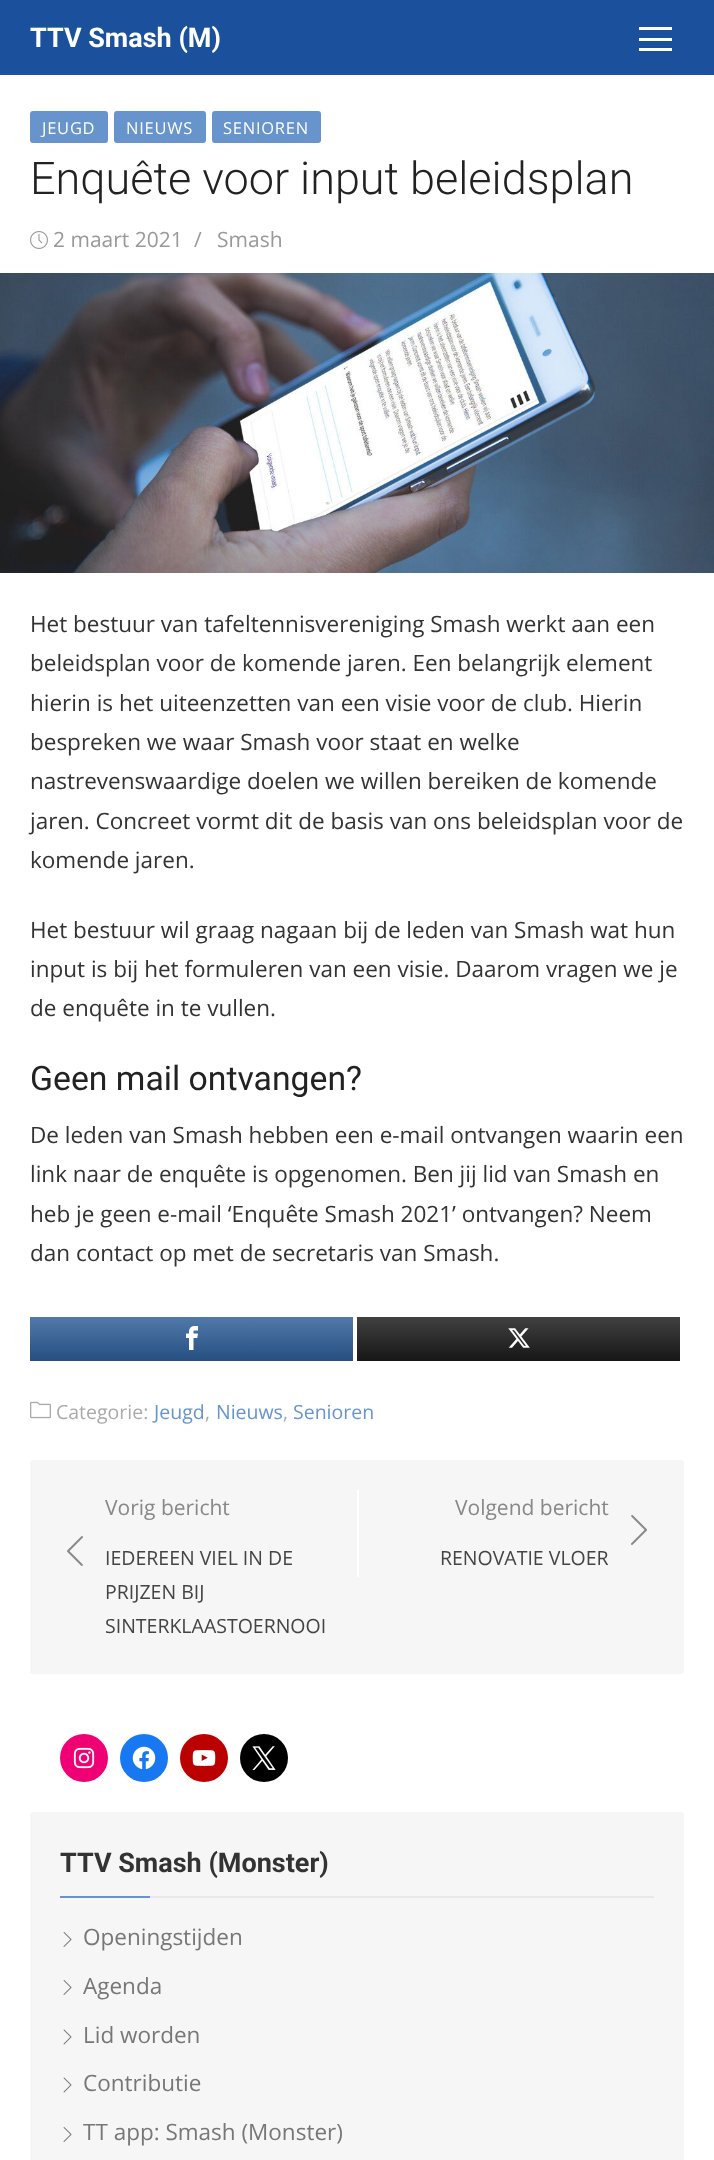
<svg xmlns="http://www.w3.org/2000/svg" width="714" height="2160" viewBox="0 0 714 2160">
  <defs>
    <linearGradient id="g1" gradientUnits="userSpaceOnUse" x1="191" y1="1361" x2="191" y2="1317"><stop offset="0" stop-color="rgb(37,79,128)"/><stop offset="1" stop-color="rgb(81,122,171)"/></linearGradient>
    <linearGradient id="g2" gradientUnits="userSpaceOnUse" x1="518" y1="1361" x2="518" y2="1317"><stop offset="0" stop-color="rgb(22,22,22)"/><stop offset="1" stop-color="rgb(65,65,65)"/></linearGradient>
  </defs>
  <rect width="100%" height="100%" fill="rgb(255,255,255)"/>
  <rect x="0" y="0" width="714" height="75" fill="rgb(27,80,156)"/>
  <text x="30" y="47" font-family="Roboto" font-size="27" font-weight="bold" fill="rgb(255,255,255)">TTV Smash (M)</text>
  <rect x="639" y="38" width="33" height="3" fill="rgb(255,255,255)"/>
  <rect x="639" y="27" width="33" height="3" fill="rgb(255,255,255)"/>
  <rect x="639" y="48" width="33" height="3" fill="rgb(255,255,255)"/>
  <rect x="30" y="111" width="78" height="32" rx="3" fill="rgb(103,148,204)"/>
  <text x="42" y="134" font-family="Open Sans" font-size="16.5" letter-spacing="0.75" fill="rgb(255,255,255)">JEUGD</text>
  <rect x="114" y="111" width="92" height="32" rx="3" fill="rgb(103,148,204)"/>
  <text x="126" y="134" font-family="Open Sans" font-size="16.5" letter-spacing="0.75" fill="rgb(255,255,255)">NIEUWS</text>
  <rect x="212" y="111" width="109" height="32" rx="3" fill="rgb(103,148,204)"/>
  <text x="223" y="134" font-family="Open Sans" font-size="16.5" letter-spacing="0.75" fill="rgb(255,255,255)">SENIOREN</text>
  <text x="30" y="194" font-family="Roboto" font-size="45" font-weight="300" fill="rgb(34,34,34)">Enquête voor input beleidsplan</text>
  <image x="30" y="231" width="18" height="18" href="pic1.png"/>
  <g font-family="Open Sans" font-size="21" fill="rgb(153,153,153)">
    <text x="53" y="247">2 maart 2021</text>
    <text x="194" y="247">/</text>
    <text x="217" y="247">Smash</text>
  </g>
  <image x="0" y="273" width="714" height="300" href="pic2.png"/>
  <g font-family="Open Sans" font-size="22.5" fill="rgb(51,51,51)">
    <text>
      <tspan x="30" y="632">Het bestuur van tafeltennisvereniging Smash werkt aan een</tspan>
      <tspan x="30" y="671">beleidsplan voor de komende jaren. Een belangrijk element</tspan>
      <tspan x="30" y="711">hierin is het uiteenzetten van een visie voor de club. Hierin</tspan>
      <tspan x="30" y="750">bespreken we waar Smash voor staat en welke</tspan>
      <tspan x="30" y="789">nastrevenswaardige doelen we willen bereiken de komende</tspan>
      <tspan x="30" y="829">jaren. Concreet vormt dit de basis van ons beleidsplan voor de</tspan>
      <tspan x="30" y="868">komende jaren.</tspan>
    </text>
    <text>
      <tspan x="30" y="938">Het bestuur wil graag nagaan bij de leden van Smash wat hun</tspan>
      <tspan x="30" y="977">input is bij het formuleren van een visie. Daarom vragen we je</tspan>
      <tspan x="30" y="1016">de enquête in te vullen.</tspan>
    </text>
  </g>
  <text x="30" y="1090" font-family="Roboto" font-size="33.75" fill="rgb(34,34,34)">Geen mail ontvangen?</text>
  <g font-family="Open Sans" font-size="22.5" fill="rgb(51,51,51)">
    <text>
      <tspan x="30" y="1143">De leden van Smash hebben een e-mail ontvangen waarin een</tspan>
      <tspan x="30" y="1182">link naar de enquête is opgenomen. Ben jij lid van Smash en</tspan>
      <tspan x="30" y="1222">heb je geen e-mail ‘Enquête Smash 2021’ ontvangen? Neem</tspan>
      <tspan x="30" y="1261">dan contact op met de secretaris van Smash.</tspan>
    </text>
  </g>
  <rect x="30" y="1317" width="323" height="44" fill="url(#g1)"/>
  <image x="186" y="1326" width="12" height="24" href="pic3.png"/>
  <rect x="357" y="1317" width="323" height="44" fill="url(#g2)"/>
  <image x="508" y="1328" width="22" height="20" href="pic4.png"/>
  <image x="30" y="1401" width="21" height="18" href="pic5.png"/>
  <text x="56" y="1419" font-family="Open Sans" font-size="19.5" fill="rgb(170,170,170)">Categorie:</text>
  <text x="154" y="1419" font-family="Open Sans" font-size="19.5" fill="rgb(103,148,204)">Jeugd</text>
  <text x="205" y="1419" font-family="Open Sans" font-size="19.5" fill="rgb(170,170,170)">,</text>
  <text x="216" y="1419" font-family="Open Sans" font-size="19.5" fill="rgb(103,148,204)">Nieuws</text>
  <text x="283" y="1419" font-family="Open Sans" font-size="19.5" fill="rgb(170,170,170)">,</text>
  <text x="293" y="1419" font-family="Open Sans" font-size="19.5" fill="rgb(103,148,204)">Senioren</text>
  <rect x="30" y="1460" width="654" height="214" rx="3" fill="rgb(246,246,246)"/>
  <text x="105" y="1515" font-family="Open Sans" font-size="21" fill="rgb(136,136,136)">Vorig bericht</text>
  <image x="67" y="1536" width="16" height="30" href="pic6.png"/>
  <g font-family="Open Sans" font-size="19.5" fill="rgb(68,68,68)">
    <text>
      <tspan x="105" y="1565">IEDEREEN VIEL IN DE</tspan>
      <tspan x="105" y="1599">PRIJZEN BIJ</tspan>
      <tspan x="105" y="1633">SINTERKLAASTOERNOOI</tspan>
    </text>
  </g>
  <rect x="357" y="1490" width="2" height="87" fill="rgb(255,255,255)"/>
  <text x="455" y="1515" font-family="Open Sans" font-size="21" fill="rgb(136,136,136)">Volgend bericht</text>
  <image x="631" y="1515" width="16" height="30" href="pic7.png"/>
  <text x="440" y="1565" font-family="Open Sans" font-size="19.5" fill="rgb(68,68,68)">RENOVATIE VLOER</text>
  <circle cx="84" cy="1758" r="24" fill="rgb(240,0,117)"/>
  <image x="73" y="1747" width="22" height="22" href="pic8.png"/>
  <circle cx="144" cy="1758" r="24" fill="rgb(23,120,242)"/>
  <image x="132" y="1746" width="24" height="24" href="pic9.png"/>
  <circle cx="204" cy="1758" r="24" fill="rgb(187,0,0)"/>
  <image x="192" y="1750" width="24" height="16" href="pic10.png"/>
  <circle cx="264" cy="1758" r="24" fill="rgb(0,0,0)"/>
  <image x="252" y="1746" width="24" height="24" href="pic11.png"/>
  <rect x="30" y="1812" width="654" height="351" rx="3" fill="rgb(246,246,246)"/>
  <rect x="150" y="1896" width="504" height="2" fill="rgb(232,232,232)"/>
  <text x="60" y="1872" font-family="Roboto" font-size="27" font-weight="bold" fill="rgb(51,51,51)">TTV Smash (Monster)</text>
  <rect x="60" y="1896" width="90" height="2" fill="rgb(103,148,204)"/>
  <image x="63" y="1932" width="9" height="15" href="pic12.png"/>
  <text x="83" y="1945" font-family="Open Sans" font-size="22.5" fill="rgb(119,119,119)">Openingstijden</text>
  <image x="63" y="1980" width="9" height="15" href="pic12.png"/>
  <text x="83" y="1994" font-family="Open Sans" font-size="22.5" fill="rgb(119,119,119)">Agenda</text>
  <image x="63" y="2029" width="9" height="16" href="pic13.png"/>
  <text x="83" y="2043" font-family="Open Sans" font-size="22.5" fill="rgb(119,119,119)">Lid worden</text>
  <image x="63" y="2077" width="9" height="16" href="pic13.png"/>
  <text x="83" y="2091" font-family="Open Sans" font-size="22.5" fill="rgb(119,119,119)">Contributie</text>
  <image x="63" y="2127" width="9" height="15" href="pic12.png"/>
  <text x="83" y="2140" font-family="Open Sans" font-size="22.5" fill="rgb(119,119,119)">TT app: Smash (Monster)</text>
</svg>
